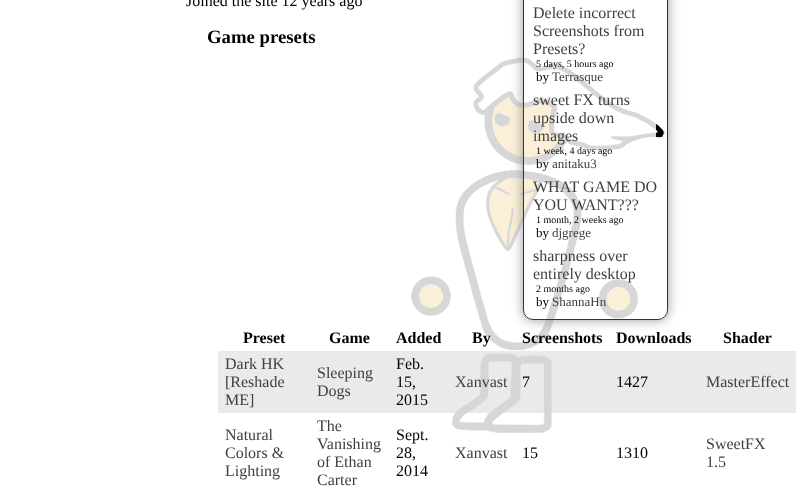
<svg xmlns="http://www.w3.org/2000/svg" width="810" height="492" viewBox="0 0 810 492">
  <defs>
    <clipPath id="clip1"><path d="M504 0H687V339H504ZM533-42H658C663.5-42 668-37.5 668-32V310C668 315.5 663.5 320 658 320H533C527.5 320 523 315.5 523 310V-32C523-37.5 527.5-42 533-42Z" clip-rule="evenodd"/></clipPath>
  </defs>
  <rect width="100%" height="100%" fill="rgb(255,255,255)"/>
  <image x="411" y="57" width="254" height="376" href="pic1.png"/>
  <text x="186" y="6" font-family="Liberation Serif" font-size="16" fill="rgb(0,0,0)">Joined the site 12 years ago</text>
  <text x="207" y="43" font-family="Liberation Serif" font-size="18.75" font-weight="bold" fill="rgb(0,0,0)">Game presets</text>
  <g font-family="Liberation Serif" font-size="16" font-weight="bold" fill="rgb(0,0,0)">
    <text x="243" y="343">Preset</text>
    <text x="329" y="343">Game</text>
    <text x="396" y="343">Added</text>
    <text x="472" y="343">By</text>
  </g>
  <g clip-path="url(#clip1)">
    <rect x="523" y="-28" width="145" height="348" rx="10" fill="rgb(153,153,153)" filter="blur(6px)"/>
  </g>
  <g font-family="Liberation Serif" font-size="16" font-weight="bold" fill="rgb(0,0,0)">
    <text x="522" y="343">Screenshots</text>
    <text x="616" y="343">Downloads</text>
    <text x="723" y="343">Shader</text>
  </g>
  <rect x="218" y="351" width="578" height="62" fill="rgba(213,213,213,0.49)"/>
  <g font-family="Liberation Serif" font-size="16" fill="rgb(63,63,63)">
    <text>
      <tspan x="225" y="369">Dark HK</tspan>
      <tspan x="225" y="387">[Reshade</tspan>
      <tspan x="225" y="405">ME]</tspan>
    </text>
    <text>
      <tspan x="317" y="378">Sleeping</tspan>
      <tspan x="317" y="396">Dogs</tspan>
    </text>
  </g>
  <g font-family="Liberation Serif" font-size="16" fill="rgb(0,0,0)">
    <text>
      <tspan x="396" y="369">Feb.</tspan>
      <tspan x="396" y="387">15,</tspan>
      <tspan x="396" y="405">2015</tspan>
    </text>
  </g>
  <text x="455" y="387" font-family="Liberation Serif" font-size="16" fill="rgb(63,63,63)">Xanvast</text>
  <g font-family="Liberation Serif" font-size="16" fill="rgb(0,0,0)">
    <text x="522" y="387">7</text>
    <text x="616" y="387">1427</text>
  </g>
  <g font-family="Liberation Serif" font-size="16" fill="rgb(63,63,63)">
    <text x="706" y="387">MasterEffect</text>
    <text>
      <tspan x="225" y="440">Natural</tspan>
      <tspan x="225" y="458">Colors &amp;</tspan>
      <tspan x="225" y="476">Lighting</tspan>
    </text>
    <text>
      <tspan x="317" y="431">The</tspan>
      <tspan x="317" y="449">Vanishing</tspan>
      <tspan x="317" y="467">of Ethan</tspan>
      <tspan x="317" y="485">Carter</tspan>
    </text>
  </g>
  <g font-family="Liberation Serif" font-size="16" fill="rgb(0,0,0)">
    <text>
      <tspan x="396" y="440">Sept.</tspan>
      <tspan x="396" y="458">28,</tspan>
      <tspan x="396" y="476">2014</tspan>
    </text>
  </g>
  <text x="455" y="458" font-family="Liberation Serif" font-size="16" fill="rgb(63,63,63)">Xanvast</text>
  <g font-family="Liberation Serif" font-size="16" fill="rgb(0,0,0)">
    <text x="522" y="458">15</text>
    <text x="616" y="458">1310</text>
  </g>
  <g font-family="Liberation Serif" font-size="16" fill="rgb(63,63,63)">
    <text>
      <tspan x="706" y="449">SweetFX</tspan>
      <tspan x="706" y="467">1.5</tspan>
    </text>
  </g>
  <rect x="523.5" y="-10.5" width="144" height="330" rx="9.5" fill="none" stroke="rgb(51,51,51)"/>
  <g font-family="Liberation Serif" font-size="16" fill="rgb(63,63,63)">
    <text>
      <tspan x="533" y="18">Delete incorrect</tspan>
      <tspan x="533" y="36">Screenshots from</tspan>
      <tspan x="533" y="54">Presets?</tspan>
    </text>
  </g>
  <text x="536" y="67" font-family="Liberation Serif" font-size="10" fill="rgb(0,0,0)">5 days, 5 hours ago</text>
  <text x="536" y="81" font-family="Liberation Serif" font-size="13" fill="rgb(0,0,0)">by</text>
  <text x="552" y="81" font-family="Liberation Serif" font-size="13" fill="rgb(63,63,63)">Terrasque</text>
  <g font-family="Liberation Serif" font-size="16" fill="rgb(63,63,63)">
    <text>
      <tspan x="533" y="105">sweet FX turns</tspan>
      <tspan x="533" y="123">upside down</tspan>
      <tspan x="533" y="141">images</tspan>
    </text>
  </g>
  <text x="536" y="154" font-family="Liberation Serif" font-size="10" fill="rgb(0,0,0)">1 week, 4 days ago</text>
  <text x="536" y="168" font-family="Liberation Serif" font-size="13" fill="rgb(0,0,0)">by</text>
  <text x="552" y="168" font-family="Liberation Serif" font-size="13" fill="rgb(63,63,63)">anitaku3</text>
  <g font-family="Liberation Serif" font-size="16" fill="rgb(63,63,63)">
    <text>
      <tspan x="533" y="192">WHAT GAME DO</tspan>
      <tspan x="533" y="210">YOU WANT???</tspan>
    </text>
  </g>
  <text x="536" y="223" font-family="Liberation Serif" font-size="10" fill="rgb(0,0,0)">1 month, 2 weeks ago</text>
  <text x="536" y="237" font-family="Liberation Serif" font-size="13" fill="rgb(0,0,0)">by</text>
  <text x="552" y="237" font-family="Liberation Serif" font-size="13" fill="rgb(63,63,63)">djgrege</text>
  <g font-family="Liberation Serif" font-size="16" fill="rgb(63,63,63)">
    <text>
      <tspan x="533" y="261">sharpness over</tspan>
      <tspan x="533" y="279">entirely desktop</tspan>
    </text>
  </g>
  <text x="536" y="292" font-family="Liberation Serif" font-size="10" fill="rgb(0,0,0)">2 months ago</text>
  <text x="536" y="306" font-family="Liberation Serif" font-size="13" fill="rgb(0,0,0)">by</text>
  <text x="552" y="306" font-family="Liberation Serif" font-size="13" fill="rgb(63,63,63)">ShannaHn</text>
</svg>
